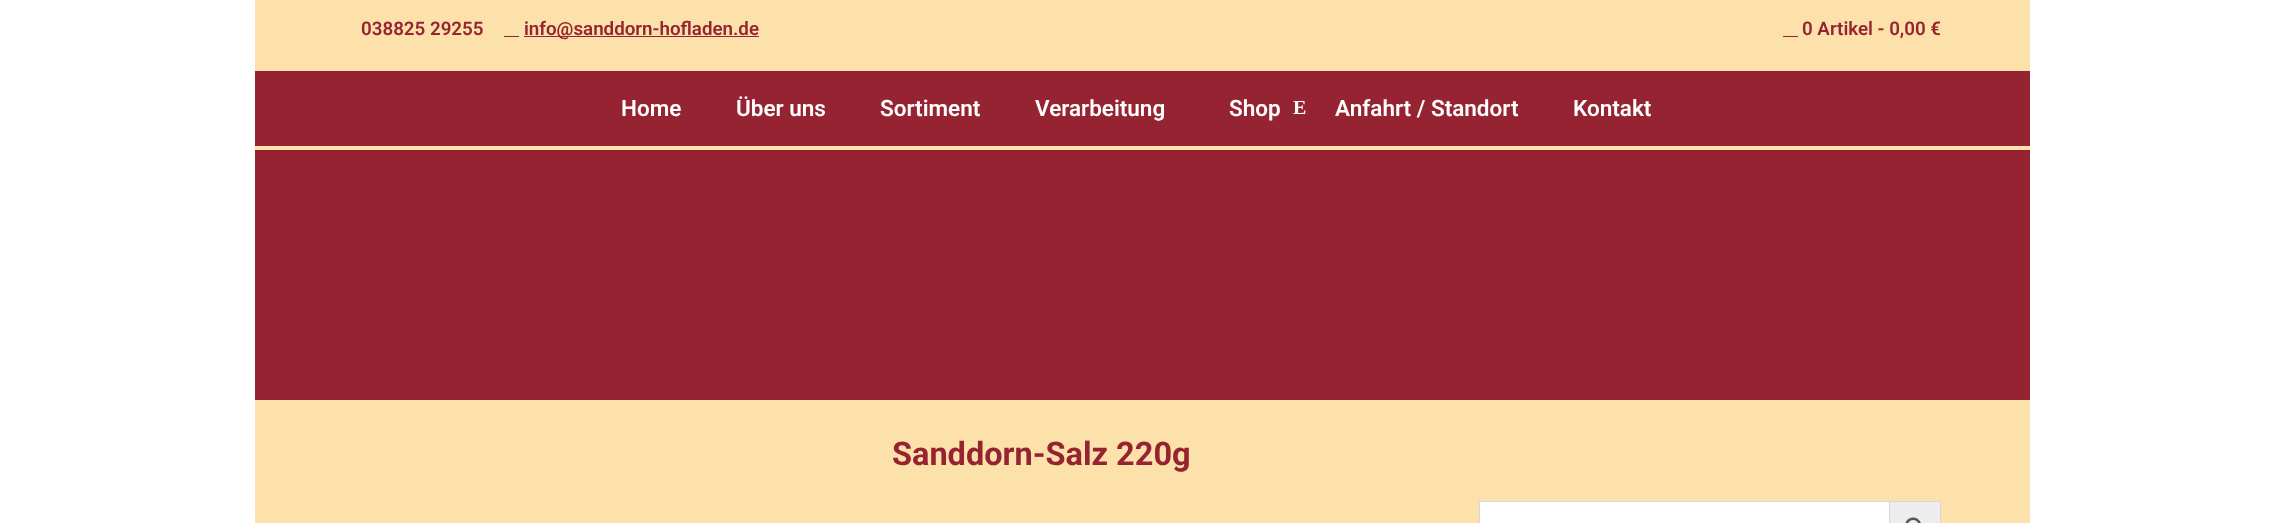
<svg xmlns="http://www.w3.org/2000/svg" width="2284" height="523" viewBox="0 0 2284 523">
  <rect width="100%" height="100%" fill="rgb(255,255,255)"/>
  <rect x="255" y="0" width="1775" height="71" fill="rgb(253,225,170)"/>
  <text x="361" y="35" font-family="Roboto" font-size="18.75" font-weight="600" fill="rgb(150,35,49)">038825 29255</text>
  <rect x="524" y="36" width="235" height="1" fill="rgb(150,35,49)"/>
  <text x="524" y="35" font-family="Roboto" font-size="18.75" font-weight="600" fill="rgb(150,35,49)">info@sanddorn-hofladen.de</text>
  <rect x="504" y="36" width="15" height="1" fill="rgb(150,35,49)"/>
  <rect x="1783" y="36" width="15" height="1" fill="rgb(150,35,49)"/>
  <text x="1802" y="35" font-family="Roboto" font-size="18.75" font-weight="600" fill="rgb(150,35,49)">0 Artikel - 0,00 €</text>
  <rect x="255" y="150" width="1775" height="1" fill="rgb(135,32,44)"/>
  <rect x="255" y="71" width="1775" height="75" fill="rgb(150,35,49)"/>
  <rect x="255" y="146" width="1775" height="4" fill="rgb(253,225,170)"/>
  <g font-family="Roboto" font-size="22.5" font-weight="600" fill="rgb(255,255,255)">
    <text x="621" y="116">Home</text>
    <text x="736" y="116">Über uns</text>
    <text x="880" y="116">Sortiment</text>
    <text x="1035" y="116">Verarbeitung</text>
    <text x="1229" y="116">Shop</text>
  </g>
  <text x="1293" y="114" font-family="Liberation Serif" font-size="20" font-weight="bold" fill="rgb(255,255,255)">E</text>
  <g font-family="Roboto" font-size="22.5" font-weight="600" fill="rgb(255,255,255)">
    <text x="1335" y="116">Anfahrt / Standort</text>
    <text x="1573" y="116">Kontakt</text>
  </g>
  <rect x="255" y="400" width="1775" height="123" fill="rgb(253,225,170)"/>
  <rect x="255" y="151" width="1775" height="249" fill="rgb(150,35,49)"/>
  <text x="892" y="465" font-family="Roboto" font-size="32.5" font-weight="bold" fill="rgb(150,35,49)">Sanddorn-Salz 220g</text>
  <rect x="1889.5" y="501.5" width="51" height="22" fill="rgb(237,237,237)" stroke="rgb(216,216,216)"/>
  <rect x="1479.5" y="501.5" width="410" height="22" fill="rgb(255,255,255)" stroke="rgb(216,216,216)"/>
  <image x="1905" y="517" width="16" height="6" href="pic1.png"/>
</svg>
